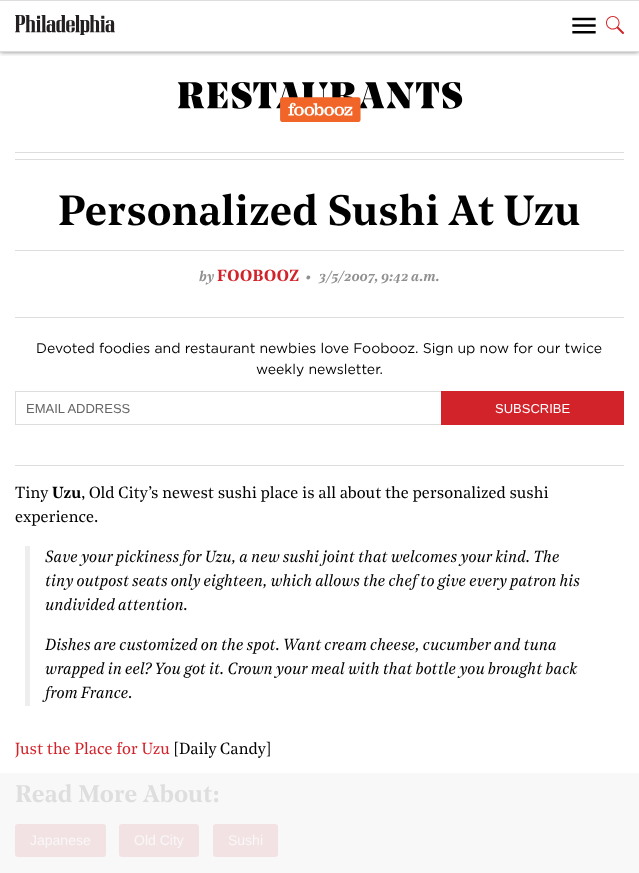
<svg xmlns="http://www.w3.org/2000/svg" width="639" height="873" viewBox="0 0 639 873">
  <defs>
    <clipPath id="clip1"><rect x="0" y="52" width="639" height="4"/></clipPath>
  </defs>
  <rect width="100%" height="100%" fill="rgb(255,255,255)"/>
  <rect x="0" y="773" width="639" height="100" fill="rgb(248,248,248)"/>
  <g clip-path="url(#clip1)">
    <rect x="0" y="0" width="639" height="52" fill="rgba(0,0,0,0.5)" filter="blur(2.5px)"/>
  </g>
  <rect x="0" y="0" width="639" height="1" fill="rgb(221,221,221)"/>
  <rect x="0" y="51" width="639" height="1" fill="rgb(221,221,221)"/>
  <image x="15" y="15" width="100" height="20" href="pic1.png"/>
  <image x="572" y="17" width="24" height="17" href="pic2.png"/>
  <image x="606" y="16" width="18" height="18" href="pic3.png"/>
  <image x="177" y="82" width="286" height="40" href="pic4.png"/>
  <rect x="15" y="152" width="609" height="1" fill="rgb(221,221,221)"/>
  <rect x="15" y="159" width="609" height="1" fill="rgb(221,221,221)"/>
  <text x="58" y="225" font-family="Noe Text" font-size="42" font-weight="600" fill="rgb(0,0,0)">Personalized Sushi At Uzu</text>
  <rect x="15" y="250" width="609" height="1" fill="rgb(221,221,221)"/>
  <rect x="15" y="317" width="609" height="1" fill="rgb(221,221,221)"/>
  <text x="199" y="281" font-family="Noe Text" font-size="14" font-weight="600" font-style="italic" fill="rgb(144,144,144)">by</text>
  <text x="217" y="281" font-family="Noe Text" font-size="16" font-weight="600" letter-spacing="0.5" fill="rgb(210,35,42)">FOOBOOZ</text>
  <text x="305" y="284" font-family="Noe Text" font-size="22" font-weight="600" font-style="italic" fill="rgb(144,144,144)">·</text>
  <text x="319" y="281" font-family="Noe Text" font-size="14" font-weight="600" font-style="italic" fill="rgb(144,144,144)">3/5/2007, 9:42 a.m.</text>
  <rect x="15" y="465" width="609" height="1" fill="rgb(221,221,221)"/>
  <g font-family="Gotham" font-size="14" fill="rgb(0,0,0)">
    <text x="36" y="353">Devoted foodies and restaurant newbies love Foobooz. Sign up now for our twice</text>
    <text x="256" y="374">weekly newsletter.</text>
  </g>
  <rect x="15.5" y="391.5" width="608" height="33" fill="none" stroke="rgb(221,221,221)"/>
  <text x="26" y="413" font-family="Liberation Sans" font-size="13" fill="rgb(102,102,102)">EMAIL ADDRESS</text>
  <rect x="441" y="391" width="183" height="34" fill="rgb(210,35,42)"/>
  <text x="495" y="413" font-family="Liberation Sans" font-size="13" fill="rgb(255,255,255)">SUBSCRIBE</text>
  <text x="15" y="498" font-family="Noe Text" font-size="16" fill="rgb(0,0,0)">Tiny</text>
  <text x="52" y="498" font-family="Noe Text" font-size="16" font-weight="600" fill="rgb(0,0,0)">Uzu</text>
  <g font-family="Noe Text" font-size="16" fill="rgb(0,0,0)">
    <text x="81" y="498">, Old City’s newest sushi place is all about the personalized sushi</text>
    <text x="15" y="522">experience.</text>
  </g>
  <rect x="25" y="546" width="5" height="160" fill="rgb(238,238,238)"/>
  <g font-family="Noe Text" font-size="16" font-style="italic" fill="rgb(0,0,0)">
    <text>
      <tspan x="45" y="562">Save your pickiness for Uzu, a new sushi joint that welcomes your kind. The</tspan>
      <tspan x="45" y="586">tiny outpost seats only eighteen, which allows the chef to give every patron his</tspan>
      <tspan x="45" y="610">undivided attention.</tspan>
    </text>
    <text>
      <tspan x="45" y="650">Dishes are customized on the spot. Want cream cheese, cucumber and tuna</tspan>
      <tspan x="45" y="674">wrapped in eel? You got it. Crown your meal with that bottle you brought back</tspan>
      <tspan x="45" y="698">from France.</tspan>
    </text>
  </g>
  <text x="15" y="754" font-family="Noe Text" font-size="16" fill="rgb(210,35,42)">Just the Place for Uzu</text>
  <text x="173" y="754" font-family="Noe Text" font-size="16" fill="rgb(0,0,0)">[Daily Candy]</text>
  <text x="15" y="802" font-family="Noe Text" font-size="24" font-weight="600" fill="rgb(222,222,222)">Read More About:</text>
  <rect x="15" y="824" width="91" height="33" rx="3" fill="rgb(243,226,227)"/>
  <text x="30" y="845" font-family="Liberation Sans" font-size="14" fill="rgb(248,248,248)">Japanese</text>
  <rect x="119" y="824" width="80" height="33" rx="3" fill="rgb(243,226,227)"/>
  <text x="134" y="845" font-family="Liberation Sans" font-size="14" fill="rgb(248,248,248)">Old City</text>
  <rect x="213" y="824" width="65" height="33" rx="3" fill="rgb(243,226,227)"/>
  <text x="228" y="845" font-family="Liberation Sans" font-size="14" fill="rgb(248,248,248)">Sushi</text>
</svg>
